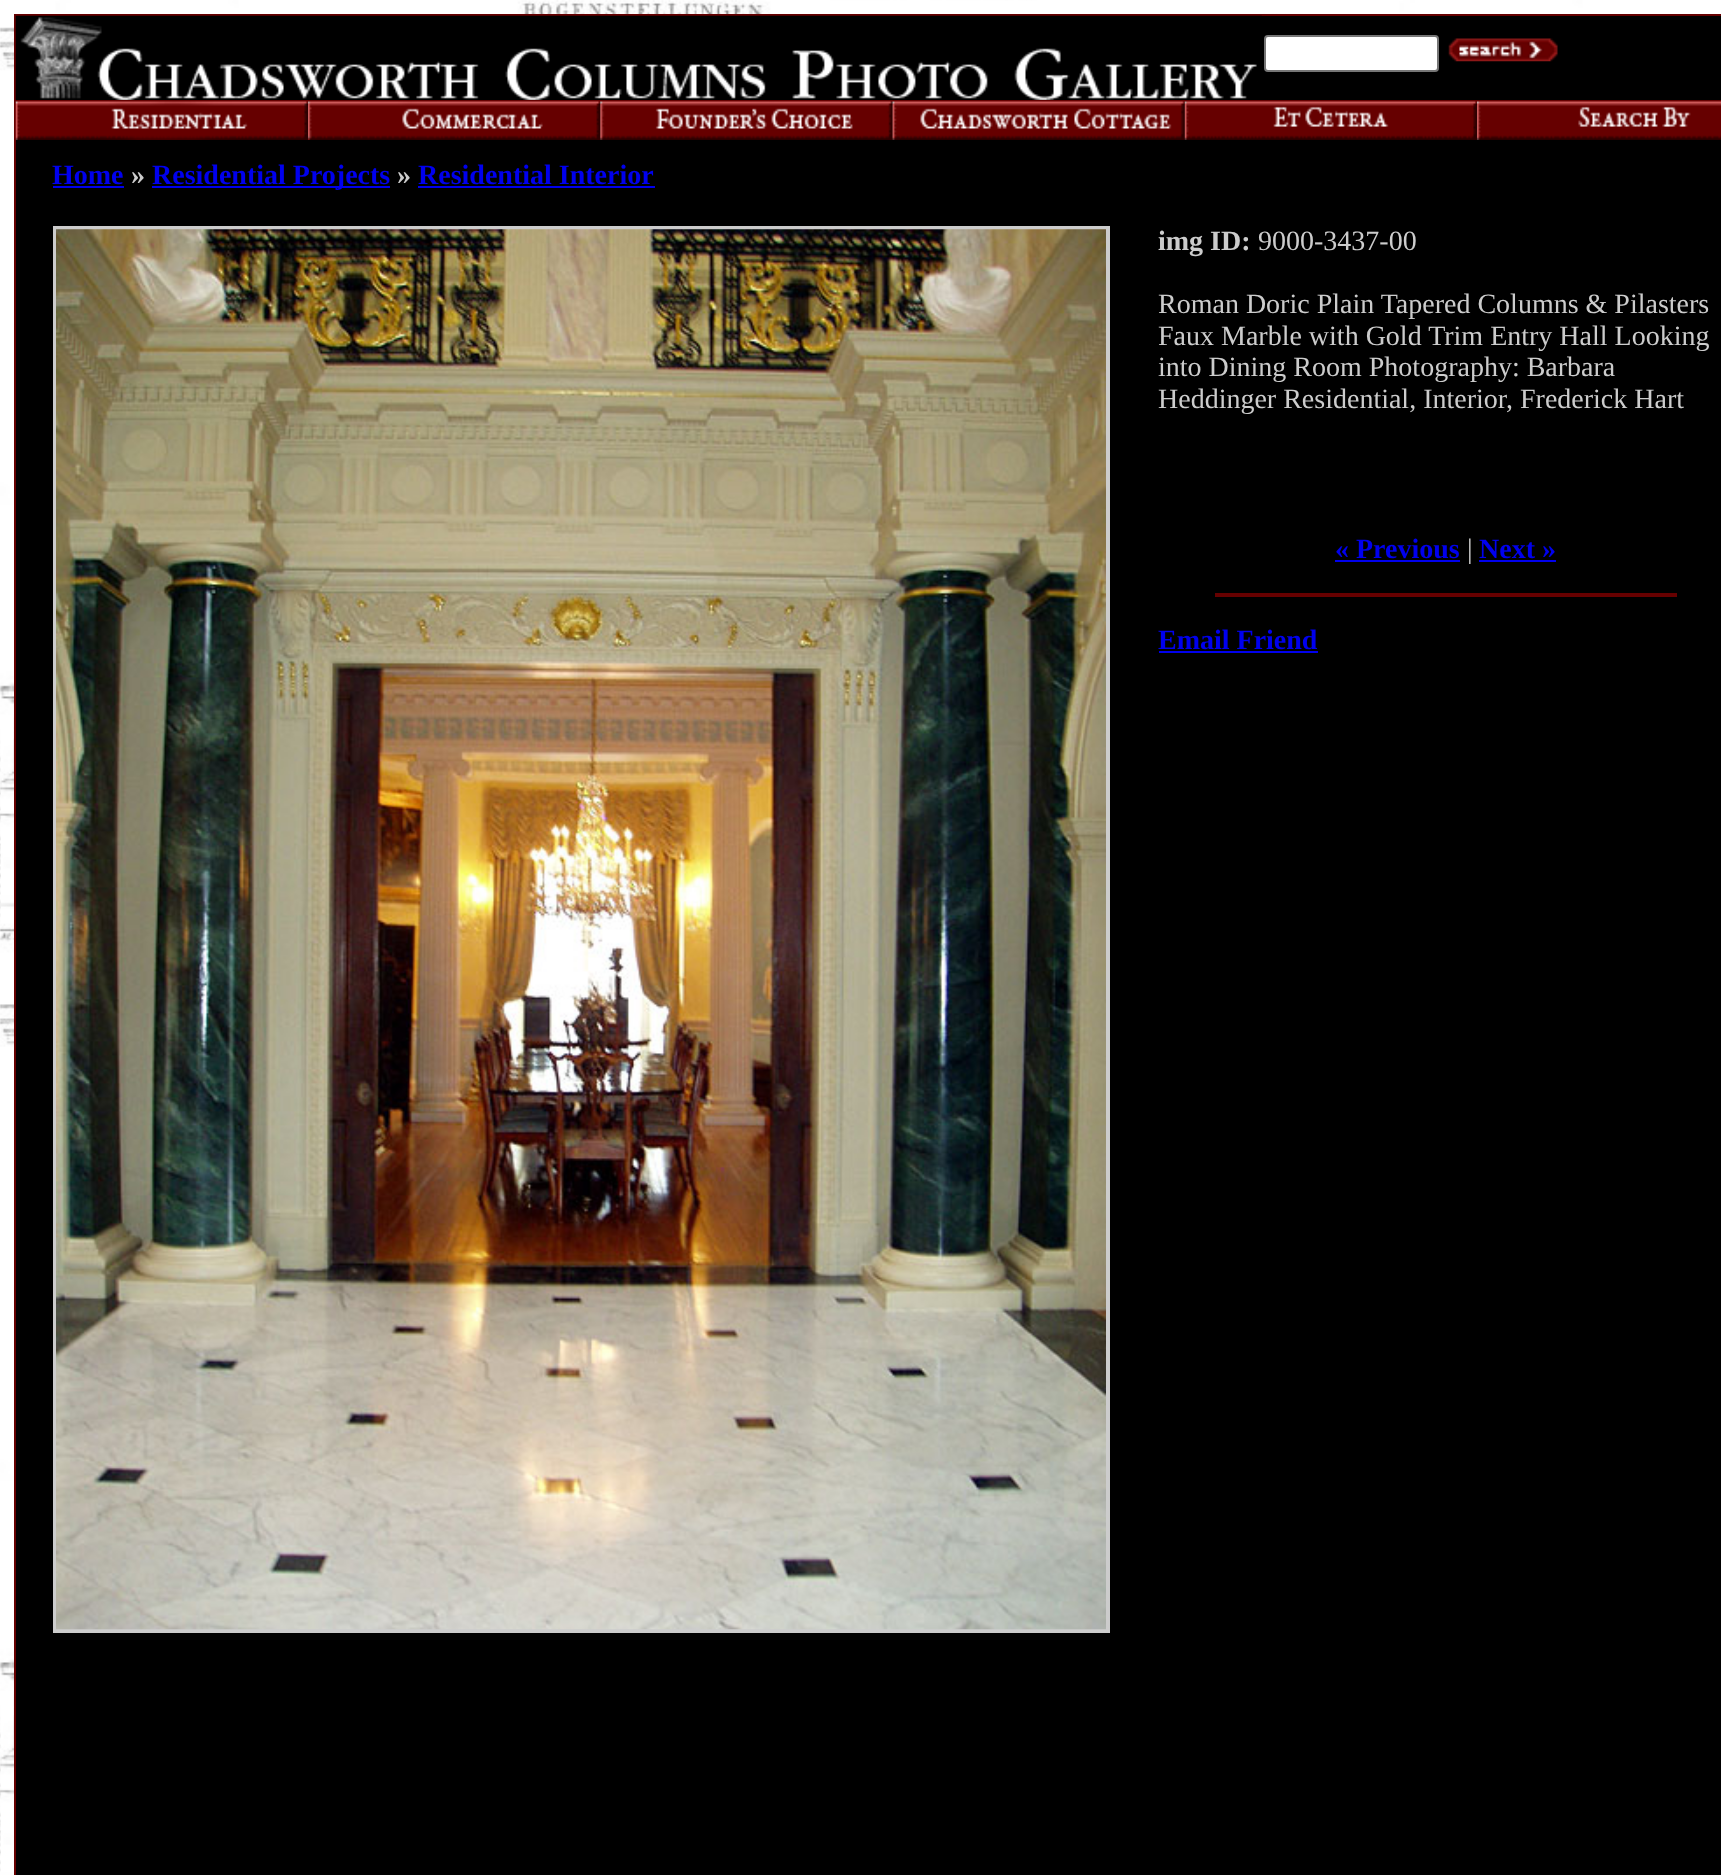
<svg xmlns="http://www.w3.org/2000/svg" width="1721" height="1875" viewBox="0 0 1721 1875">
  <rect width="100%" height="100%" fill="rgb(255,255,255)"/>
  <image x="0" y="0" width="1721" height="1875" href="pic1.png"/>
  <rect x="14" y="14" width="1707" height="2" fill="rgb(102,0,0)"/>
  <rect x="14" y="14" width="2" height="1861" fill="rgb(102,0,0)"/>
  <rect x="16" y="16" width="1705" height="84" fill="rgb(0,0,0)"/>
  <image x="15" y="15" width="1247" height="85" href="pic2.png"/>
  <rect x="1265" y="36" width="173" height="35" rx="3" fill="rgb(255,255,255)" stroke="rgb(118,118,118)" stroke-width="2"/>
  <image x="1448" y="38" width="110" height="24" href="pic3.png"/>
  <rect x="16" y="102" width="1705" height="1773" fill="rgb(0,0,0)"/>
  <rect x="14" y="100" width="1707" height="2" fill="rgb(102,0,0)"/>
  <image x="15" y="101" width="293" height="39" href="pic4.png"/>
  <image x="308" y="101" width="293" height="39" href="pic5.png"/>
  <image x="600" y="101" width="293" height="39" href="pic6.png"/>
  <image x="892" y="101" width="293" height="39" href="pic7.png"/>
  <image x="1184" y="101" width="293" height="39" href="pic8.png"/>
  <image x="1477" y="101" width="244" height="39" href="pic9.png"/>
  <text x="52" y="184" font-family="Liberation Serif" font-size="28" font-weight="bold" fill="rgb(0,0,238)">Home</text>
  <rect x="53" y="186" width="71" height="2" fill="rgb(0,0,238)"/>
  <text x="131" y="184" font-family="Liberation Serif" font-size="28" font-weight="bold" fill="rgb(204,204,204)">»</text>
  <rect x="152" y="186" width="238" height="2" fill="rgb(0,0,238)"/>
  <text x="152" y="184" font-family="Liberation Serif" font-size="28" font-weight="bold" fill="rgb(0,0,238)">Residential Projects</text>
  <text x="397" y="184" font-family="Liberation Serif" font-size="28" font-weight="bold" fill="rgb(204,204,204)">»</text>
  <text x="418" y="184" font-family="Liberation Serif" font-size="28" font-weight="bold" fill="rgb(0,0,238)">Residential Interior</text>
  <rect x="418" y="186" width="237" height="2" fill="rgb(0,0,238)"/>
  <rect x="55" y="228" width="1053" height="1403" fill="none" stroke="rgb(204,204,204)" stroke-width="4"/>
  <image x="56" y="229" width="1050" height="1401" href="pic10.png"/>
  <text x="1158" y="250" font-family="Liberation Serif" font-size="28" font-weight="bold" fill="rgb(204,204,204)">img ID:</text>
  <g font-family="Liberation Serif" font-size="28" fill="rgb(204,204,204)">
    <text x="1258" y="250">9000-3437-00</text>
    <text>
      <tspan x="1158" y="313">Roman Doric Plain Tapered Columns &amp; Pilasters</tspan>
      <tspan x="1158" y="345">Faux Marble with Gold Trim Entry Hall Looking</tspan>
      <tspan x="1158" y="376">into Dining Room Photography: Barbara</tspan>
      <tspan x="1158" y="408">Heddinger Residential, Interior, Frederick Hart</tspan>
    </text>
  </g>
  <text x="1335" y="558" font-family="Liberation Serif" font-size="28" font-weight="bold" fill="rgb(0,0,238)">« Previous</text>
  <rect x="1335" y="560" width="125" height="2" fill="rgb(0,0,238)"/>
  <text x="1467" y="558" font-family="Liberation Serif" font-size="28" fill="rgb(204,204,204)">|</text>
  <text x="1479" y="558" font-family="Liberation Serif" font-size="28" font-weight="bold" fill="rgb(0,0,238)">Next »</text>
  <rect x="1479" y="560" width="77" height="2" fill="rgb(0,0,238)"/>
  <rect x="1215" y="593" width="462" height="4" fill="rgb(102,0,0)"/>
  <text x="1158" y="649" font-family="Liberation Serif" font-size="28" font-weight="bold" fill="rgb(0,0,238)">Email Friend</text>
  <rect x="1159" y="651" width="159" height="2" fill="rgb(0,0,238)"/>
</svg>
